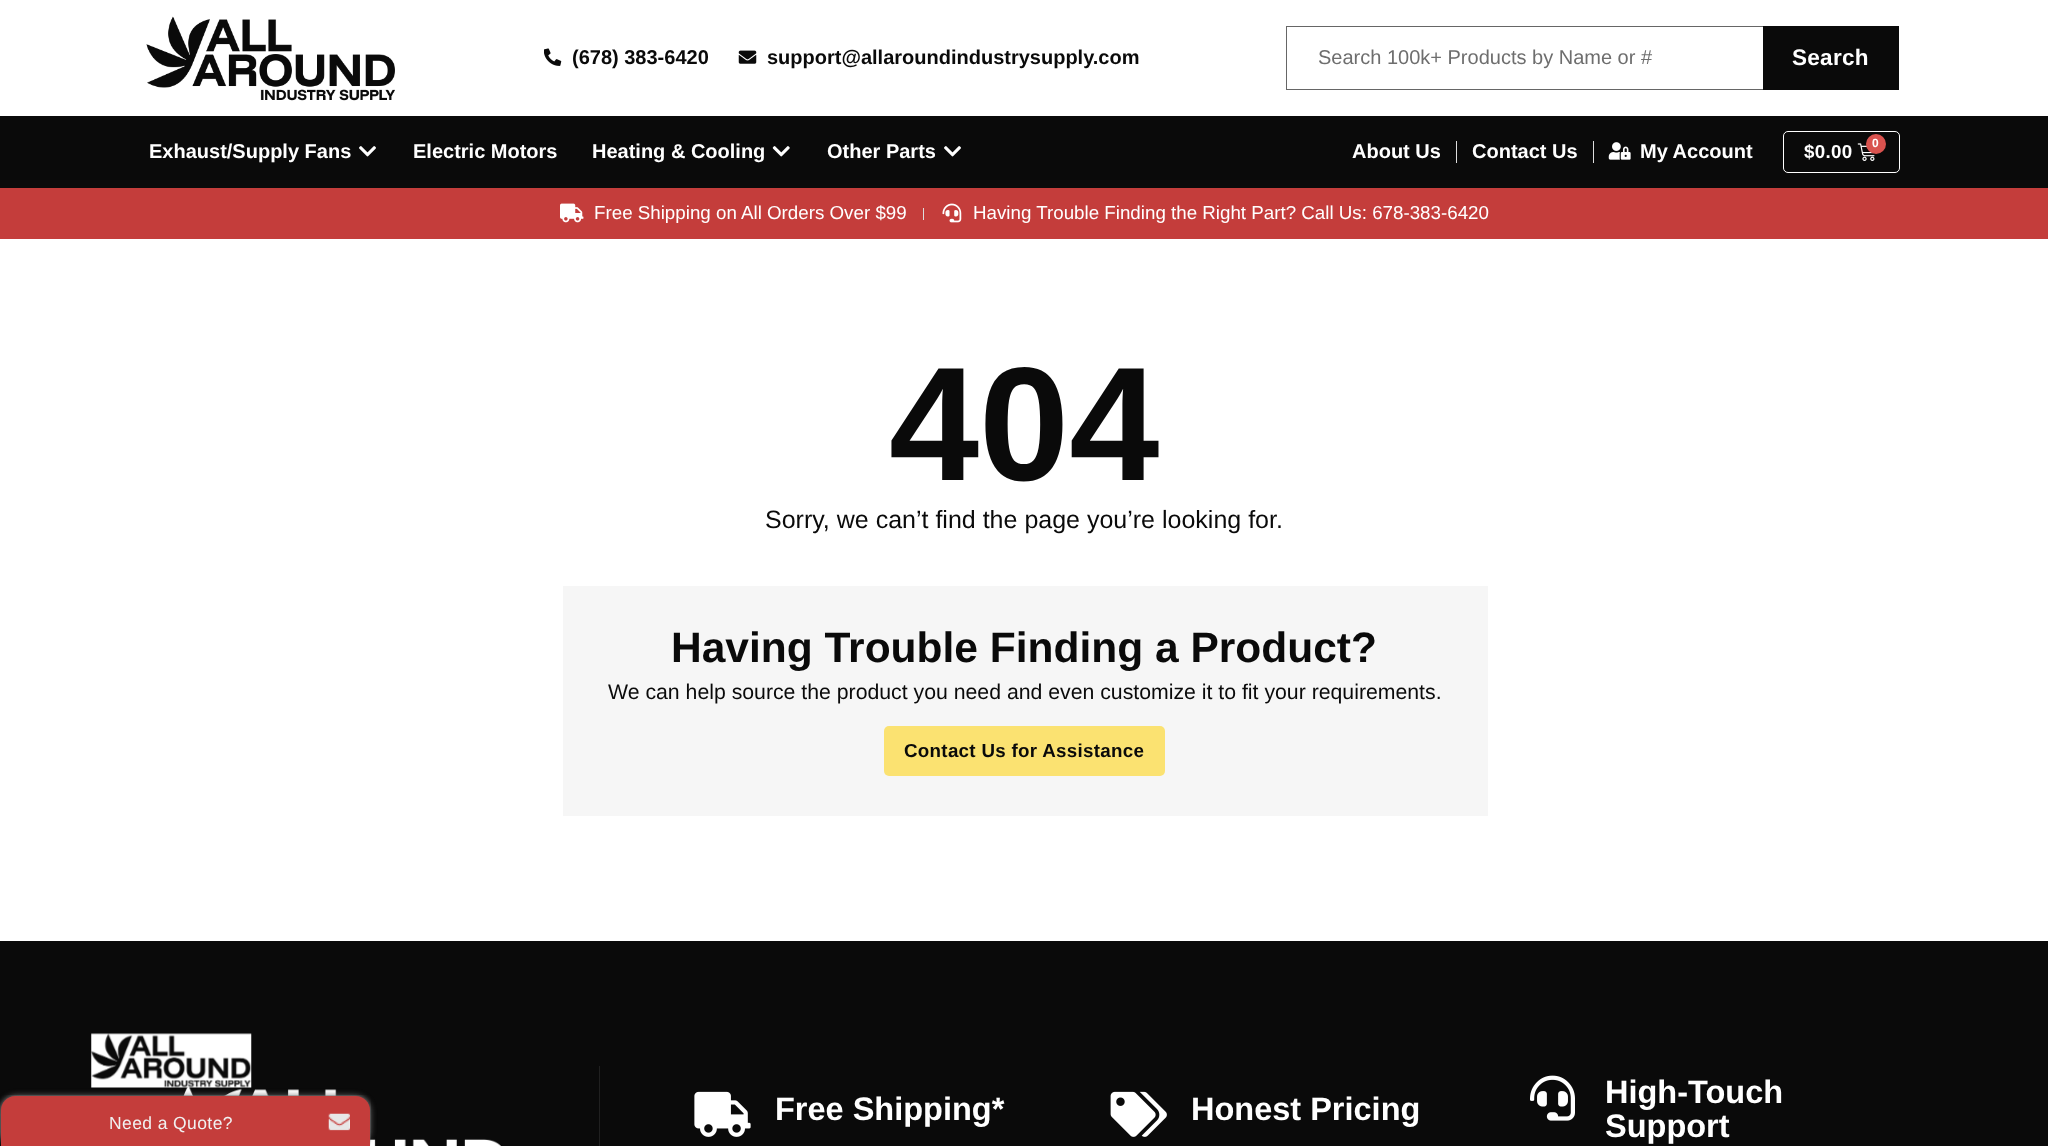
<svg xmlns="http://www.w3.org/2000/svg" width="2048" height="1146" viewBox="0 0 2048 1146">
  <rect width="100%" height="100%" fill="rgb(255,255,255)"/>
  <image x="146" y="16" width="249" height="85" href="pic1.png"/>
  <image x="544" y="48" width="18" height="18" href="pic2.png"/>
  <text x="572" y="64" font-family="Liberation Sans" font-size="20" font-weight="bold" fill="rgb(10,10,10)">(678) 383-6420</text>
  <image x="738" y="50" width="19" height="14" href="pic3.png"/>
  <text x="767" y="64" font-family="Liberation Sans" font-size="20" font-weight="bold" fill="rgb(10,10,10)">support@allaroundindustrysupply.com</text>
  <rect x="1286.5" y="26.5" width="477" height="63" fill="none" stroke="rgb(102,102,102)"/>
  <text x="1318" y="64" font-family="Liberation Sans" font-size="20" fill="rgb(110,110,110)">Search 100k+ Products by Name or #</text>
  <rect x="1763" y="26" width="136" height="64" fill="rgb(10,10,10)"/>
  <text x="1792" y="65" font-family="Liberation Sans" font-size="22.5" font-weight="bold" letter-spacing="0.3" fill="rgb(255,255,255)">Search</text>
  <rect x="0" y="116" width="2048" height="72" fill="rgb(10,10,10)"/>
  <text x="149" y="158" font-family="Liberation Sans" font-size="20" font-weight="bold" fill="rgb(255,255,255)">Exhaust/Supply Fans</text>
  <image x="359" y="146" width="17" height="11" href="pic4.png"/>
  <g font-family="Liberation Sans" font-size="20" font-weight="bold" fill="rgb(255,255,255)">
    <text x="413" y="158">Electric Motors</text>
    <text x="592" y="158">Heating &amp; Cooling</text>
  </g>
  <image x="772" y="146" width="18" height="11" href="pic5.png"/>
  <text x="827" y="158" font-family="Liberation Sans" font-size="20" font-weight="bold" fill="rgb(255,255,255)">Other Parts</text>
  <image x="944" y="146" width="17" height="11" href="pic4.png"/>
  <text x="1352" y="158" font-family="Liberation Sans" font-size="20" font-weight="bold" fill="rgb(255,255,255)">About Us</text>
  <rect x="1456" y="141" width="1" height="22" fill="rgb(221,221,221)"/>
  <text x="1472" y="158" font-family="Liberation Sans" font-size="20" font-weight="bold" fill="rgb(255,255,255)">Contact Us</text>
  <rect x="1593" y="141" width="1" height="22" fill="rgb(221,221,221)"/>
  <image x="1608" y="142" width="23" height="18" href="pic6.png"/>
  <text x="1640" y="158" font-family="Liberation Sans" font-size="20" font-weight="bold" fill="rgb(255,255,255)">My Account</text>
  <rect x="1783.5" y="131.5" width="116" height="41" rx="4.5" fill="none" stroke="rgb(255,255,255)"/>
  <image x="1857" y="143" width="18" height="18" href="pic7.png"/>
  <circle cx="1876" cy="144" r="10" fill="rgb(217,83,79)"/>
  <text x="1872" y="147" font-family="Liberation Sans" font-size="12" font-weight="bold" letter-spacing="0.3" fill="rgb(255,255,255)">0</text>
  <text x="1804" y="158" font-family="Liberation Sans" font-size="18.75" font-weight="bold" letter-spacing="0.3" fill="rgb(255,255,255)">$0.00</text>
  <rect x="0" y="188" width="2048" height="51" fill="rgb(196,61,59)"/>
  <image x="560" y="203" width="24" height="20" href="pic8.png"/>
  <text x="594" y="219" font-family="Liberation Sans" font-size="18.75" fill="rgb(255,255,255)">Free Shipping on All Orders Over $99</text>
  <rect x="923" y="208" width="1" height="12" fill="rgb(221,221,221)"/>
  <image x="942" y="203" width="20" height="20" href="pic9.png"/>
  <text x="973" y="219" font-family="Liberation Sans" font-size="18.75" fill="rgb(255,255,255)">Having Trouble Finding the Right Part? Call Us: 678-383-6420</text>
  <text x="889" y="480" font-family="Liberation Sans" font-size="162" font-weight="bold" fill="rgb(10,10,10)">404</text>
  <text x="765" y="528" font-family="Liberation Sans" font-size="25" fill="rgb(10,10,10)">Sorry, we can’t find the page you’re looking for.</text>
  <rect x="563" y="586" width="925" height="230" fill="rgb(246,246,246)"/>
  <text x="671" y="662" font-family="Liberation Sans" font-size="42.5" font-weight="bold" fill="rgb(10,10,10)">Having Trouble Finding a Product?</text>
  <text x="608" y="699" font-family="Liberation Sans" font-size="21.25" fill="rgb(10,10,10)">We can help source the product you need and even customize it to fit your requirements.</text>
  <rect x="884" y="726" width="281" height="50" rx="5" fill="rgb(251,226,113)"/>
  <text x="904" y="757" font-family="Liberation Sans" font-size="18.75" font-weight="bold" letter-spacing="0.3" fill="rgb(10,10,10)">Contact Us for Assistance</text>
  <rect x="0" y="941" width="2048" height="205" fill="rgb(10,10,10)"/>
  <image x="183" y="1087" width="318" height="59" href="pic13.png"/>
  <image x="91" y="1033" width="161" height="55" href="pic10.png"/>
  <rect x="1" y="1096" width="369" height="50" rx="16" fill="rgb(119,119,119)" filter="blur(3px)"/>
  <image x="0" y="1095" width="371" height="51" href="pic11.png"/>
  <path d="M15 1096H356C363.5 1096 370 1102.5 370 1110V1146H1V1110C1 1102.5 7.5 1096 15 1096Z" fill="rgb(196,61,59)"/>
  <text x="109" y="1129" font-family="Liberation Sans" font-size="17.5" letter-spacing="0.4" fill="rgb(241,241,241)">Need a Quote?</text>
  <image x="328" y="1113" width="22" height="18" href="pic12.png"/>
  <rect x="599" y="1066" width="1" height="80" fill="rgb(32,32,32)"/>
  <image x="694" y="1091" width="57" height="46" href="pic14.png"/>
  <text x="775" y="1120" font-family="Liberation Sans" font-size="32.5" font-weight="bold" fill="rgb(255,255,255)">Free Shipping*</text>
  <image x="1110" y="1091" width="57" height="46" href="pic15.png"/>
  <text x="1191" y="1120" font-family="Liberation Sans" font-size="32.5" font-weight="bold" fill="rgb(255,255,255)">Honest Pricing</text>
  <image x="1530" y="1075" width="45" height="46" href="pic16.png"/>
  <g font-family="Liberation Sans" font-size="32.5" font-weight="bold" fill="rgb(255,255,255)">
    <text>
      <tspan x="1605" y="1103">High-Touch</tspan>
      <tspan x="1605" y="1137">Support</tspan>
    </text>
  </g>
</svg>
